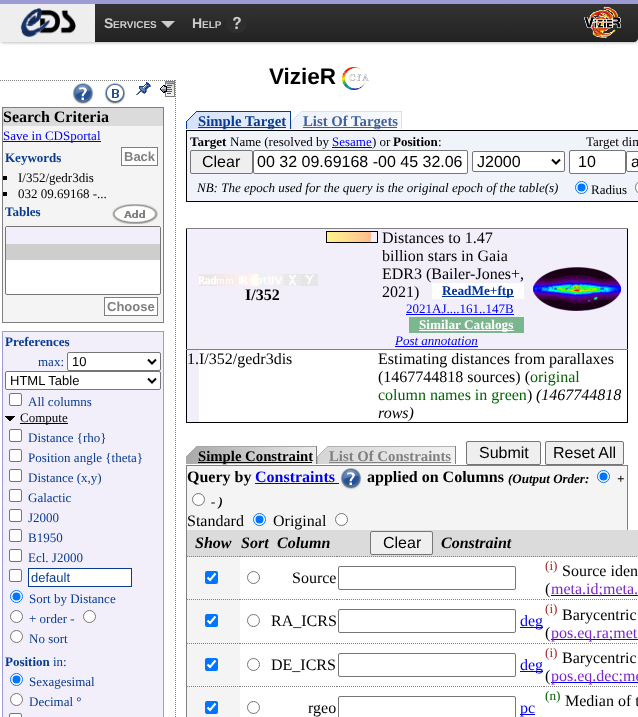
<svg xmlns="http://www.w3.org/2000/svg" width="638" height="717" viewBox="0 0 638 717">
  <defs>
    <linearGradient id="g1" gradientUnits="userSpaceOnUse" x1="319" y1="4" x2="319" y2="42"><stop offset="0" stop-color="rgb(51,51,51)"/><stop offset="1" stop-color="rgb(34,34,34)"/></linearGradient>
  </defs>
  <rect width="100%" height="100%" fill="rgb(255,255,255)"/>
  <rect x="0" y="1" width="638" height="42" rx="4" fill="rgba(0,0,0,0.25)" filter="blur(1.5px)"/>
  <path d="M0 4H638V38C638 40 636 42 634 42H4C2 42 0 40 0 38Z" fill="url(#g1)"/>
  <path d="M0 37C0 40 1 42 4 42H634C637 42 638 40 638 37C638 39 636 41 634 41H4C2 41 0 39 0 37Z" fill="rgba(0,0,0,0.1)"/>
  <rect x="0" y="0" width="638" height="4" fill="rgb(156,155,213)"/>
  <rect x="0" y="4" width="95" height="38" fill="rgb(238,238,238)"/>
  <image x="20" y="8" width="56" height="30" href="pic1.png"/>
  <text x="104" y="28" font-family="Liberation Sans" font-size="14" font-weight="bold" fill="rgb(204,204,204)">S</text>
  <text x="113" y="28" font-family="Liberation Sans" font-size="10" font-weight="bold" fill="rgb(204,204,204)">ERVICES</text>
  <path d="M161 21H175L168 28Z" fill="rgb(204,204,204)"/>
  <text x="192" y="28" font-family="Liberation Sans" font-size="14" font-weight="bold" fill="rgb(204,204,204)">H</text>
  <text x="202" y="28" font-family="Liberation Sans" font-size="10" font-weight="bold" fill="rgb(204,204,204)">ELP</text>
  <image x="227" y="16" width="20" height="17" href="pic2.png"/>
  <image x="584" y="6" width="37" height="32" href="pic3.png"/>
  <text x="269" y="84" font-family="Liberation Sans" font-size="22.5" font-weight="bold" fill="rgb(0,0,0)">VizieR</text>
  <image x="342" y="67" width="27" height="23" href="pic4.png"/>
  <path d="M0 80.5H176" fill="none" stroke="rgb(128,128,128)" stroke-dasharray="1 1"/>
  <path d="M175.5 80V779" fill="none" stroke="rgb(128,128,128)" stroke-dasharray="1 1"/>
  <image x="72" y="83" width="22" height="22" href="pic5.png"/>
  <image x="104" y="83" width="22" height="22" href="pic6.png"/>
  <image x="136" y="82" width="15" height="13" href="pic7.png"/>
  <image x="160" y="81" width="15" height="16" href="pic8.png"/>
  <rect x="3" y="126" width="160" height="196" fill="rgb(244,244,244)"/>
  <rect x="2.5" y="107.5" width="161" height="215" fill="none" stroke="rgb(128,128,128)"/>
  <rect x="3" y="108" width="160" height="18" fill="rgb(219,219,219)"/>
  <text x="3" y="122" font-family="Liberation Serif" font-size="16" font-weight="bold" fill="rgb(0,0,0)">Search Criteria</text>
  <rect x="3" y="141" width="98" height="1" fill="rgb(0,0,238)"/>
  <text x="3" y="140" font-family="Liberation Serif" font-size="13" fill="rgb(0,0,238)">Save in CDSportal</text>
  <text x="5" y="162" font-family="Liberation Serif" font-size="13" font-weight="bold" fill="rgb(8,60,145)">Keywords</text>
  <rect x="121.5" y="147.5" width="36" height="18" fill="rgb(255,255,255)" stroke="rgb(128,128,128)"/>
  <text x="124" y="161" font-family="Liberation Sans" font-size="13" font-weight="bold" fill="rgb(128,128,128)">Back</text>
  <rect x="3" y="176" width="4" height="4" fill="rgb(0,0,0)"/>
  <text x="18" y="182" font-family="Liberation Serif" font-size="13" fill="rgb(0,0,0)">I/352/gedr3dis</text>
  <rect x="3" y="192" width="4" height="4" fill="rgb(0,0,0)"/>
  <text x="18" y="198" font-family="Liberation Serif" font-size="13" fill="rgb(0,0,0)">032 09.69168 -...</text>
  <text x="5" y="216" font-family="Liberation Serif" font-size="13" font-weight="bold" fill="rgb(8,60,145)">Tables</text>
  <image x="112" y="204" width="46" height="20" href="pic9.png"/>
  <rect x="5.5" y="226.5" width="155" height="68" rx="1.5" fill="rgb(255,255,255)" stroke="rgb(118,118,118)"/>
  <path d="M7 227H159C159.5 227 160 227.5 160 228V244H6V228C6 227.5 6.5 227 7 227Z" fill="rgb(242,239,251)"/>
  <rect x="6" y="244" width="154" height="16" fill="rgb(206,206,206)"/>
  <rect x="104.5" y="297.5" width="53" height="18" fill="rgb(255,255,255)" stroke="rgb(128,128,128)"/>
  <text x="107" y="311" font-family="Liberation Sans" font-size="13" font-weight="bold" fill="rgb(128,128,128)">Choose</text>
  <rect x="2.5" y="331.5" width="161" height="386" fill="rgb(242,239,251)" stroke="rgb(156,155,213)"/>
  <text x="5" y="346" font-family="Liberation Serif" font-size="13" font-weight="bold" fill="rgb(8,60,145)">Preferences</text>
  <text x="38" y="366" font-family="Liberation Serif" font-size="13" fill="rgb(8,60,145)">max:</text>
  <rect x="67.5" y="352.5" width="93" height="18" rx="1.5" fill="rgb(255,255,255)" stroke="rgb(118,118,118)"/>
  <path d="M148 359.5L152 363.5L156 359.5" fill="none" stroke="rgb(0,0,0)" stroke-width="2"/>
  <text x="72" y="366" font-family="Liberation Sans" font-size="13" fill="rgb(0,0,0)">10</text>
  <rect x="5.5" y="371.5" width="155" height="18" rx="1.5" fill="rgb(255,255,255)" stroke="rgb(118,118,118)"/>
  <path d="M148 378.5L152 382.5L156 378.5" fill="none" stroke="rgb(0,0,0)" stroke-width="2"/>
  <text x="10" y="385" font-family="Liberation Sans" font-size="13" fill="rgb(0,0,0)">HTML Table</text>
  <rect x="9.5" y="393.5" width="12" height="12" rx="1.5" fill="rgb(255,255,255)" stroke="rgb(118,118,118)"/>
  <text x="28" y="406" font-family="Liberation Serif" font-size="13" fill="rgb(8,60,145)">All columns</text>
  <image x="5" y="416" width="10" height="5" href="pic10.png"/>
  <rect x="20" y="423" width="48" height="1" fill="rgb(0,0,0)"/>
  <text x="20" y="422" font-family="Liberation Serif" font-size="13" fill="rgb(0,0,0)">Compute</text>
  <rect x="9.5" y="429.5" width="12" height="12" rx="1.5" fill="rgb(255,255,255)" stroke="rgb(118,118,118)"/>
  <text x="28" y="442" font-family="Liberation Serif" font-size="13" fill="rgb(8,60,145)">Distance {rho}</text>
  <rect x="9.5" y="449.5" width="12" height="12" rx="1.5" fill="rgb(255,255,255)" stroke="rgb(118,118,118)"/>
  <text x="28" y="462" font-family="Liberation Serif" font-size="13" fill="rgb(8,60,145)">Position angle {theta}</text>
  <rect x="9.5" y="469.5" width="12" height="12" rx="1.5" fill="rgb(255,255,255)" stroke="rgb(118,118,118)"/>
  <text x="28" y="482" font-family="Liberation Serif" font-size="13" fill="rgb(8,60,145)">Distance (x,y)</text>
  <rect x="9.5" y="489.5" width="12" height="12" rx="1.5" fill="rgb(255,255,255)" stroke="rgb(118,118,118)"/>
  <text x="28" y="502" font-family="Liberation Serif" font-size="13" fill="rgb(8,60,145)">Galactic</text>
  <rect x="9.5" y="509.5" width="12" height="12" rx="1.5" fill="rgb(255,255,255)" stroke="rgb(118,118,118)"/>
  <text x="28" y="522" font-family="Liberation Serif" font-size="13" fill="rgb(8,60,145)">J2000</text>
  <rect x="9.5" y="529.5" width="12" height="12" rx="1.5" fill="rgb(255,255,255)" stroke="rgb(118,118,118)"/>
  <text x="28" y="542" font-family="Liberation Serif" font-size="13" fill="rgb(8,60,145)">B1950</text>
  <rect x="9.5" y="549.5" width="12" height="12" rx="1.5" fill="rgb(255,255,255)" stroke="rgb(118,118,118)"/>
  <text x="28" y="562" font-family="Liberation Serif" font-size="13" fill="rgb(8,60,145)">Ecl. J2000</text>
  <rect x="9.5" y="569.5" width="12" height="12" rx="1.5" fill="rgb(255,255,255)" stroke="rgb(118,118,118)"/>
  <rect x="28.5" y="568.5" width="103" height="18" fill="rgb(255,255,255)" stroke="rgb(8,60,145)"/>
  <text x="31" y="582" font-family="Liberation Sans" font-size="13" fill="rgb(8,60,145)">default</text>
  <circle cx="16.5" cy="596.5" r="6" fill="rgb(255,255,255)" stroke="rgb(0,117,255)"/>
  <circle cx="16.5" cy="596.5" r="4" fill="rgb(0,117,255)"/>
  <text x="29" y="603" font-family="Liberation Serif" font-size="13" fill="rgb(8,60,145)">Sort by Distance</text>
  <circle cx="16.5" cy="616.5" r="6" fill="rgb(255,255,255)" stroke="rgb(118,118,118)"/>
  <text x="29" y="623" font-family="Liberation Serif" font-size="13" fill="rgb(8,60,145)">+ order -</text>
  <circle cx="89.5" cy="616.5" r="6" fill="rgb(255,255,255)" stroke="rgb(118,118,118)"/>
  <circle cx="16.5" cy="636.5" r="6" fill="rgb(255,255,255)" stroke="rgb(118,118,118)"/>
  <text x="29" y="643" font-family="Liberation Serif" font-size="13" fill="rgb(8,60,145)">No sort</text>
  <text x="5" y="666" font-family="Liberation Serif" font-size="13" font-weight="bold" fill="rgb(8,60,145)">Position</text>
  <text x="53" y="666" font-family="Liberation Serif" font-size="13" fill="rgb(8,60,145)">in:</text>
  <circle cx="16.5" cy="679.5" r="6" fill="rgb(255,255,255)" stroke="rgb(0,117,255)"/>
  <circle cx="16.5" cy="679.5" r="4" fill="rgb(0,117,255)"/>
  <text x="29" y="686" font-family="Liberation Serif" font-size="13" fill="rgb(8,60,145)">Sexagesimal</text>
  <circle cx="16.5" cy="699.5" r="6" fill="rgb(255,255,255)" stroke="rgb(118,118,118)"/>
  <text x="29" y="706" font-family="Liberation Serif" font-size="13" fill="rgb(8,60,145)">Decimal °</text>
  <rect x="9.5" y="713.5" width="12" height="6" rx="1.5" fill="rgb(255,255,255)" stroke="rgb(118,118,118)"/>
  <image x="186" y="111" width="104" height="18" href="pic11.png"/>
  <image x="291" y="111" width="110" height="18" href="pic12.png"/>
  <rect x="198" y="127" width="88" height="1" fill="rgb(8,60,145)"/>
  <text x="198" y="126" font-family="Liberation Serif" font-size="14.75" font-weight="bold" fill="rgb(8,60,145)">Simple Target</text>
  <rect x="290" y="111" width="1" height="18" fill="rgb(8,60,145)"/>
  <rect x="303" y="127" width="94" height="1" fill="rgb(66,99,154)"/>
  <text x="303" y="126" font-family="Liberation Serif" font-size="14.75" font-weight="bold" fill="rgb(66,99,154)">List Of Targets</text>
  <rect x="401" y="111" width="1" height="18" fill="rgb(213,225,251)"/>
  <rect x="186.5" y="130.5" width="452" height="71" fill="rgb(241,243,251)" stroke="rgb(0,0,0)"/>
  <text x="190" y="146" font-family="Liberation Serif" font-size="13" font-weight="bold" fill="rgb(0,0,0)">Target</text>
  <text x="230" y="146" font-family="Liberation Serif" font-size="13" fill="rgb(0,0,0)">Name (resolved by</text>
  <text x="332" y="146" font-family="Liberation Serif" font-size="13" fill="rgb(0,0,238)">Sesame</text>
  <rect x="332" y="147" width="40" height="1" fill="rgb(0,0,238)"/>
  <text x="372" y="146" font-family="Liberation Serif" font-size="13" fill="rgb(0,0,0)">) or</text>
  <text x="393" y="146" font-family="Liberation Serif" font-size="13" font-weight="bold" fill="rgb(0,0,0)">Position</text>
  <text x="438" y="146" font-family="Liberation Serif" font-size="13" fill="rgb(0,0,0)">:</text>
  <rect x="190.5" y="150.5" width="62" height="23" rx="1.5" fill="rgb(239,239,239)" stroke="rgb(118,118,118)"/>
  <text x="202" y="167" font-family="Liberation Sans" font-size="16" fill="rgb(0,0,0)">Clear</text>
  <rect x="253.5" y="150.5" width="214" height="23" rx="1.5" fill="rgb(255,255,255)" stroke="rgb(118,118,118)"/>
  <text x="257" y="167" font-family="Liberation Sans" font-size="16" fill="rgb(0,0,0)">00 32 09.69168 -00 45 32.06</text>
  <rect x="472.5" y="151.5" width="92" height="20" rx="1.5" fill="rgb(255,255,255)" stroke="rgb(118,118,118)"/>
  <path d="M552 159.5L556 163.5L560 159.5" fill="none" stroke="rgb(0,0,0)" stroke-width="2"/>
  <text x="477" y="167" font-family="Liberation Sans" font-size="16" fill="rgb(0,0,0)">J2000</text>
  <text x="586" y="146" font-family="Liberation Serif" font-size="13" fill="rgb(0,0,0)">Target dim</text>
  <rect x="569.5" y="150.5" width="56" height="23" rx="1.5" fill="rgb(255,255,255)" stroke="rgb(118,118,118)"/>
  <text x="578" y="167" font-family="Liberation Sans" font-size="16" fill="rgb(0,0,0)">10</text>
  <rect x="626.5" y="151.5" width="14" height="20" rx="1.5" fill="rgb(255,255,255)" stroke="rgb(118,118,118)"/>
  <text x="631" y="167" font-family="Liberation Sans" font-size="16" fill="rgb(0,0,0)">a</text>
  <text x="197" y="192" font-family="Liberation Serif" font-size="13" font-style="italic" fill="rgb(0,0,0)">NB: The epoch used for the query is the original epoch of the table(s)</text>
  <circle cx="581.5" cy="187.5" r="6" fill="rgb(255,255,255)" stroke="rgb(0,117,255)"/>
  <circle cx="581.5" cy="187.5" r="4" fill="rgb(0,117,255)"/>
  <text x="591" y="194" font-family="Liberation Serif" font-size="13" fill="rgb(0,0,0)">Radius</text>
  <rect x="635.5" y="181.5" width="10" height="12" rx="6" fill="rgb(255,255,255)" stroke="rgb(118,118,118)"/>
  <rect x="627" y="228" width="1" height="195" fill="rgb(0,0,0)"/>
  <rect x="186" y="422" width="442" height="1" fill="rgb(0,0,0)"/>
  <rect x="186" y="228" width="1" height="195" fill="rgb(0,0,0)"/>
  <rect x="378" y="228" width="4" height="121" fill="rgb(242,239,251)"/>
  <rect x="186" y="228" width="442" height="1" fill="rgb(128,128,128)"/>
  <rect x="382" y="229" width="245" height="120" fill="rgb(242,239,251)"/>
  <image x="533" y="267" width="88" height="44" href="pic13.png"/>
  <rect x="187" y="229" width="191" height="120" fill="rgb(242,239,251)"/>
  <image x="199" y="274" width="119" height="12" href="pic14.png"/>
  <rect x="199" y="274" width="17" height="12" fill="rgba(255,255,255,0.9)"/>
  <rect x="216" y="274" width="17" height="12" fill="rgba(255,255,255,0.9)"/>
  <rect x="233" y="274" width="17" height="12" fill="rgba(255,255,255,0.9)"/>
  <rect x="250" y="274" width="17" height="12" fill="rgba(255,255,255,0.9)"/>
  <rect x="267" y="274" width="17" height="12" fill="rgba(255,255,255,0.9)"/>
  <rect x="284" y="274" width="17" height="12" fill="rgba(255,255,255,0.9)"/>
  <rect x="301" y="274" width="17" height="12" fill="rgba(255,255,255,0.9)"/>
  <text x="245" y="300" font-family="Liberation Serif" font-size="16" font-weight="bold" fill="rgb(0,0,0)">I/352</text>
  <rect x="326.5" y="231.5" width="51" height="11" fill="none" stroke="rgb(0,0,0)"/>
  <image x="327" y="232" width="44" height="10" href="pic15.png"/>
  <g font-family="Liberation Serif" font-size="16" fill="rgb(0,0,0)">
    <text>
      <tspan x="382" y="243">Distances to 1.47</tspan>
      <tspan x="382" y="261">billion stars in Gaia</tspan>
      <tspan x="382" y="279">EDR3 (Bailer-Jones+,</tspan>
      <tspan x="382" y="297">2021)</tspan>
    </text>
  </g>
  <rect x="432" y="283" width="92" height="16" fill="rgb(255,255,255)"/>
  <rect x="442" y="296" width="72" height="1" fill="rgb(0,51,153)"/>
  <text x="442" y="295" font-family="Liberation Serif" font-size="13.25" font-weight="bold" fill="rgb(0,51,153)">ReadMe+ftp</text>
  <text x="406" y="313" font-family="Liberation Serif" font-size="13" fill="rgb(0,0,255)">2021AJ....161..147B</text>
  <rect x="406" y="314" width="108" height="1" fill="rgb(0,0,255)"/>
  <rect x="409" y="317" width="115" height="16" fill="rgb(124,182,142)"/>
  <rect x="419" y="330" width="95" height="1" fill="rgb(255,255,255)"/>
  <text x="419" y="329" font-family="Liberation Serif" font-size="13.25" font-weight="bold" fill="rgb(255,255,255)">Similar Catalogs</text>
  <text x="395" y="345" font-family="Liberation Serif" font-size="13" font-style="italic" fill="rgb(0,0,238)">Post annotation</text>
  <rect x="395" y="346" width="83" height="1" fill="rgb(0,0,238)"/>
  <rect x="187" y="350" width="12" height="72" fill="rgb(242,239,251)"/>
  <text x="187" y="364" font-family="Liberation Serif" font-size="16" fill="rgb(0,0,0)">1.I/352/gedr3dis</text>
  <rect x="186" y="349" width="442" height="1" fill="rgb(128,128,128)"/>
  <g font-family="Liberation Serif" font-size="16" fill="rgb(0,0,0)">
    <text>
      <tspan x="378" y="364">Estimating distances from parallaxes</tspan>
      <tspan x="378" y="382">(1467744818 sources) (</tspan>
    </text>
  </g>
  <g font-family="Liberation Serif" font-size="16" fill="rgb(0,100,0)">
    <text x="530" y="382">original</text>
    <text x="378" y="400">column names in green</text>
  </g>
  <text x="527" y="400" font-family="Liberation Serif" font-size="16" fill="rgb(0,0,0)">)</text>
  <g font-family="Liberation Serif" font-size="16" font-style="italic" fill="rgb(0,0,0)">
    <text x="536" y="400">(1467744818</text>
    <text x="378" y="418">rows)</text>
  </g>
  <image x="186" y="446" width="130" height="18" href="pic16.png"/>
  <image x="317" y="446" width="138" height="18" href="pic17.png"/>
  <rect x="198" y="462" width="114" height="1" fill="rgb(0,0,0)"/>
  <text x="198" y="461" font-family="Liberation Serif" font-size="14.75" font-weight="bold" fill="rgb(0,0,0)">Simple Constraint</text>
  <rect x="316" y="446" width="1" height="18" fill="rgb(128,128,128)"/>
  <text x="329" y="461" font-family="Liberation Serif" font-size="14.75" font-weight="bold" fill="rgb(128,128,128)">List Of Constraints</text>
  <rect x="455" y="446" width="1" height="18" fill="rgb(128,128,128)"/>
  <rect x="329" y="462" width="122" height="1" fill="rgb(128,128,128)"/>
  <rect x="466.5" y="441.5" width="74" height="23" rx="1.5" fill="rgb(239,239,239)" stroke="rgb(118,118,118)"/>
  <text x="479" y="458" font-family="Liberation Sans" font-size="16" fill="rgb(0,0,0)">Submit</text>
  <rect x="545.5" y="441.5" width="78" height="23" rx="1.5" fill="rgb(239,239,239)" stroke="rgb(118,118,118)"/>
  <text x="553" y="458" font-family="Liberation Sans" font-size="16" fill="rgb(0,0,0)">Reset All</text>
  <rect x="187" y="466" width="440" height="64" fill="rgb(244,244,244)"/>
  <rect x="186.5" y="465.5" width="441" height="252" fill="none" stroke="rgb(128,128,128)"/>
  <text x="187" y="482" font-family="Liberation Serif" font-size="16" font-weight="bold" fill="rgb(0,0,0)">Query by</text>
  <text x="255" y="482" font-family="Liberation Serif" font-size="16" font-weight="bold" fill="rgb(0,0,238)">Constraints</text>
  <rect x="255" y="483" width="84" height="1" fill="rgb(0,0,238)"/>
  <image x="340" y="468" width="22" height="22" href="pic18.png"/>
  <text x="367" y="482" font-family="Liberation Serif" font-size="16" font-weight="bold" fill="rgb(0,0,0)">applied on Columns</text>
  <text x="508" y="483" font-family="Liberation Serif" font-size="13" font-weight="bold" font-style="italic" fill="rgb(0,0,0)">(Output Order:</text>
  <circle cx="603.5" cy="476.5" r="6" fill="rgb(255,255,255)" stroke="rgb(0,117,255)"/>
  <circle cx="603.5" cy="476.5" r="4" fill="rgb(0,117,255)"/>
  <text x="617" y="483" font-family="Liberation Serif" font-size="13" font-weight="bold" font-style="italic" fill="rgb(0,0,0)">+</text>
  <circle cx="198.5" cy="499.5" r="6" fill="rgb(255,255,255)" stroke="rgb(118,118,118)"/>
  <text x="211" y="506" font-family="Liberation Serif" font-size="13" font-weight="bold" font-style="italic" fill="rgb(0,0,0)">- )</text>
  <text x="187" y="526" font-family="Liberation Serif" font-size="16" fill="rgb(0,0,0)">Standard</text>
  <circle cx="259.5" cy="519.5" r="6" fill="rgb(255,255,255)" stroke="rgb(0,117,255)"/>
  <circle cx="259.5" cy="519.5" r="4" fill="rgb(0,117,255)"/>
  <text x="273" y="526" font-family="Liberation Serif" font-size="16" fill="rgb(0,0,0)">Original</text>
  <circle cx="341.5" cy="519.5" r="6" fill="rgb(255,255,255)" stroke="rgb(118,118,118)"/>
  <rect x="627" y="557" width="1" height="160" fill="rgb(255,255,255)"/>
  <rect x="187" y="530" width="451" height="27" fill="rgb(219,219,219)"/>
  <path d="M187 556.5H240" fill="none" stroke="rgb(128,128,128)" stroke-dasharray="1 1"/>
  <text x="195" y="548" font-family="Liberation Serif" font-size="16" font-weight="bold" font-style="italic" fill="rgb(0,0,0)">Show</text>
  <path d="M240 556.5H270" fill="none" stroke="rgb(128,128,128)" stroke-dasharray="1 1"/>
  <text x="241" y="548" font-family="Liberation Serif" font-size="16" font-weight="bold" font-style="italic" fill="rgb(0,0,0)">Sort</text>
  <path d="M270 556.5H337" fill="none" stroke="rgb(128,128,128)" stroke-dasharray="1 1"/>
  <text x="277" y="548" font-family="Liberation Serif" font-size="16" font-weight="bold" font-style="italic" fill="rgb(0,0,0)">Column</text>
  <path d="M337 556.5H544" fill="none" stroke="rgb(128,128,128)" stroke-dasharray="1 1"/>
  <rect x="370.5" y="531.5" width="62" height="23" rx="1.5" fill="rgb(239,239,239)" stroke="rgb(118,118,118)"/>
  <text x="383" y="548" font-family="Liberation Sans" font-size="16" fill="rgb(0,0,0)">Clear</text>
  <text x="441" y="548" font-family="Liberation Serif" font-size="16" font-weight="bold" font-style="italic" fill="rgb(0,0,0)">Constraint</text>
  <path d="M544 556.5H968" fill="none" stroke="rgb(128,128,128)" stroke-dasharray="1 1"/>
  <rect x="187" y="557" width="53" height="160" fill="rgb(244,244,244)"/>
  <path d="M187 599.5H240" fill="none" stroke="rgb(128,128,128)" stroke-dasharray="1 1"/>
  <rect x="205" y="571" width="13" height="13" rx="2" fill="rgb(0,117,255)"/>
  <path d="M207.5 577.5L210 580L215.5 573.5" fill="none" stroke="rgb(255,255,255)" stroke-width="2.1"/>
  <path d="M240 599.5H270" fill="none" stroke="rgb(128,128,128)" stroke-dasharray="1 1"/>
  <circle cx="253.5" cy="577.5" r="6" fill="none" stroke="rgb(118,118,118)"/>
  <path d="M270 599.5H337" fill="none" stroke="rgb(128,128,128)" stroke-dasharray="1 1"/>
  <text x="292" y="583" font-family="Liberation Serif" font-size="16" fill="rgb(0,0,0)">Source</text>
  <path d="M337 599.5H544" fill="none" stroke="rgb(128,128,128)" stroke-dasharray="1 1"/>
  <rect x="338.5" y="566.5" width="177" height="23" rx="1.5" fill="none" stroke="rgb(118,118,118)"/>
  <path d="M544 599.5H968" fill="none" stroke="rgb(128,128,128)" stroke-dasharray="1 1"/>
  <text x="545" y="570" font-family="Liberation Serif" font-size="13.25" fill="rgb(165,42,42)">(i)</text>
  <g font-family="Liberation Serif" font-size="16" fill="rgb(0,0,0)">
    <text x="562" y="576">Source iden</text>
    <text x="545" y="594">(</text>
  </g>
  <rect x="551" y="595" width="87" height="1" fill="rgb(0,0,238)"/>
  <text x="551" y="594" font-family="Liberation Serif" font-size="16" fill="rgb(125,38,205)">meta.id;meta.</text>
  <path d="M187 643.5H240" fill="none" stroke="rgb(128,128,128)" stroke-dasharray="1 1"/>
  <rect x="205" y="614" width="13" height="13" rx="2" fill="rgb(0,117,255)"/>
  <path d="M207.5 620.5L210 623L215.5 616.5" fill="none" stroke="rgb(255,255,255)" stroke-width="2.1"/>
  <path d="M240 643.5H270" fill="none" stroke="rgb(128,128,128)" stroke-dasharray="1 1"/>
  <circle cx="253.5" cy="620.5" r="6" fill="none" stroke="rgb(118,118,118)"/>
  <path d="M270 643.5H337" fill="none" stroke="rgb(128,128,128)" stroke-dasharray="1 1"/>
  <text x="271" y="626" font-family="Liberation Serif" font-size="16" fill="rgb(0,0,0)">RA_ICRS</text>
  <path d="M337 643.5H544" fill="none" stroke="rgb(128,128,128)" stroke-dasharray="1 1"/>
  <rect x="338.5" y="609.5" width="177" height="23" rx="1.5" fill="none" stroke="rgb(118,118,118)"/>
  <rect x="520" y="627" width="23" height="1" fill="rgb(0,0,238)"/>
  <text x="520" y="626" font-family="Liberation Serif" font-size="16" fill="rgb(0,0,238)">deg</text>
  <path d="M544 643.5H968" fill="none" stroke="rgb(128,128,128)" stroke-dasharray="1 1"/>
  <text x="545" y="613" font-family="Liberation Serif" font-size="13.25" fill="rgb(165,42,42)">(i)</text>
  <g font-family="Liberation Serif" font-size="16" fill="rgb(0,0,0)">
    <text x="562" y="620">Barycentric</text>
    <text x="545" y="638">(</text>
  </g>
  <rect x="551" y="639" width="87" height="1" fill="rgb(0,0,238)"/>
  <text x="551" y="638" font-family="Liberation Serif" font-size="16" fill="rgb(125,38,205)">pos.eq.ra;met</text>
  <path d="M187 686.5H240" fill="none" stroke="rgb(128,128,128)" stroke-dasharray="1 1"/>
  <rect x="205" y="658" width="13" height="13" rx="2" fill="rgb(0,117,255)"/>
  <path d="M207.5 664.5L210 667L215.5 660.5" fill="none" stroke="rgb(255,255,255)" stroke-width="2.1"/>
  <path d="M240 686.5H270" fill="none" stroke="rgb(128,128,128)" stroke-dasharray="1 1"/>
  <circle cx="253.5" cy="664.5" r="6" fill="none" stroke="rgb(118,118,118)"/>
  <path d="M270 686.5H337" fill="none" stroke="rgb(128,128,128)" stroke-dasharray="1 1"/>
  <text x="271" y="670" font-family="Liberation Serif" font-size="16" fill="rgb(0,0,0)">DE_ICRS</text>
  <path d="M337 686.5H544" fill="none" stroke="rgb(128,128,128)" stroke-dasharray="1 1"/>
  <rect x="338.5" y="653.5" width="177" height="23" rx="1.5" fill="none" stroke="rgb(118,118,118)"/>
  <rect x="520" y="671" width="23" height="1" fill="rgb(0,0,238)"/>
  <text x="520" y="670" font-family="Liberation Serif" font-size="16" fill="rgb(0,0,238)">deg</text>
  <path d="M544 686.5H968" fill="none" stroke="rgb(128,128,128)" stroke-dasharray="1 1"/>
  <text x="545" y="657" font-family="Liberation Serif" font-size="13.25" fill="rgb(165,42,42)">(i)</text>
  <g font-family="Liberation Serif" font-size="16" fill="rgb(0,0,0)">
    <text x="562" y="663">Barycentric</text>
    <text x="545" y="681">(</text>
  </g>
  <rect x="551" y="682" width="87" height="1" fill="rgb(0,0,238)"/>
  <text x="551" y="681" font-family="Liberation Serif" font-size="16" fill="rgb(125,38,205)">pos.eq.dec;me</text>
  <rect x="205" y="701" width="13" height="13" rx="2" fill="rgb(0,117,255)"/>
  <path d="M207.5 707.5L210 710L215.5 703.5" fill="none" stroke="rgb(255,255,255)" stroke-width="2.1"/>
  <circle cx="253.5" cy="707.5" r="6" fill="none" stroke="rgb(118,118,118)"/>
  <text x="308" y="713" font-family="Liberation Serif" font-size="16" fill="rgb(0,0,0)">rgeo</text>
  <rect x="338.5" y="696.5" width="177" height="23" rx="1.5" fill="none" stroke="rgb(118,118,118)"/>
  <rect x="520" y="714" width="15" height="1" fill="rgb(0,0,238)"/>
  <text x="520" y="713" font-family="Liberation Serif" font-size="16" fill="rgb(0,0,238)">pc</text>
  <text x="545" y="700" font-family="Liberation Serif" font-size="13.25" fill="rgb(0,100,0)">(n)</text>
  <text x="565" y="706" font-family="Liberation Serif" font-size="16" fill="rgb(0,0,0)">Median of t</text>
</svg>
